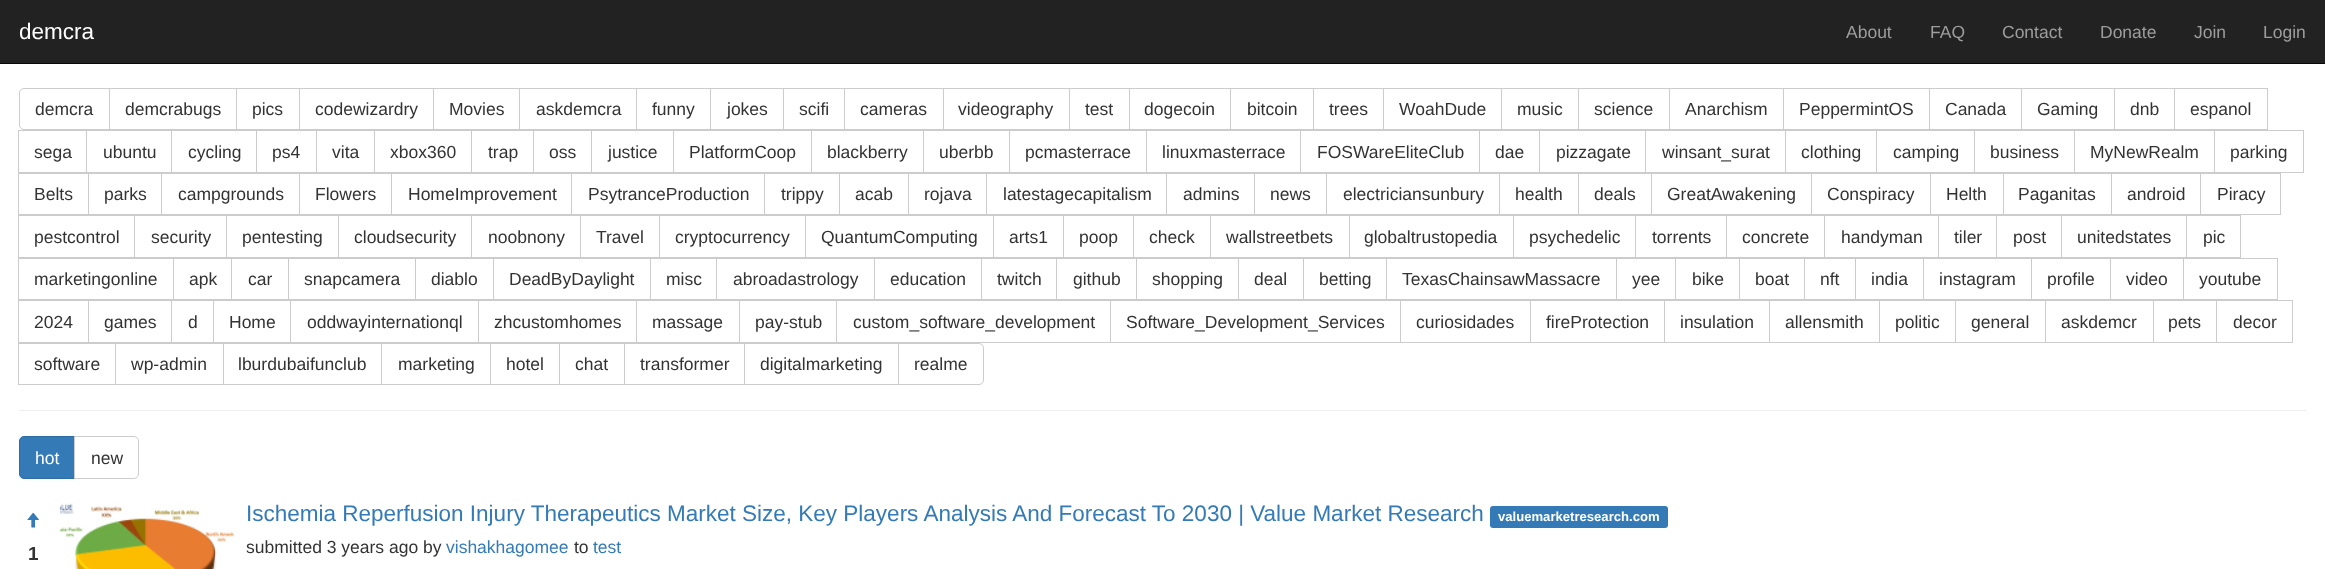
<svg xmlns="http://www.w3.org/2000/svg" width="2325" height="569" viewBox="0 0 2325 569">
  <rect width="100%" height="100%" fill="rgb(255,255,255)"/>
  <rect x="0" y="0" width="2325" height="63" fill="rgb(34,34,34)"/>
  <rect x="0" y="63" width="2325" height="1" fill="rgb(8,8,8)"/>
  <text x="19" y="39" font-family="Liberation Sans" font-size="22.5" fill="rgb(255,255,255)">demcra</text>
  <g font-family="Liberation Sans" font-size="17.5" fill="rgb(157,157,157)">
    <text x="1846" y="38">About</text>
    <text x="1930" y="38">FAQ</text>
    <text x="2002" y="38">Contact</text>
    <text x="2100" y="38">Donate</text>
    <text x="2194" y="38">Join</text>
    <text x="2263" y="38">Login</text>
  </g>
  <path d="M24 88.5H109.5V129.5H24C21.5 129.5 19.5 127.5 19.5 125V93C19.5 90.5 21.5 88.5 24 88.5Z" fill="none" stroke="rgb(204,204,204)"/>
  <text x="35" y="115" font-family="Liberation Sans" font-size="17.5" fill="rgb(51,51,51)">demcra</text>
  <rect x="109.5" y="88.5" width="128" height="41" fill="none" stroke="rgb(204,204,204)"/>
  <text x="125" y="115" font-family="Liberation Sans" font-size="17.5" fill="rgb(51,51,51)">demcrabugs</text>
  <rect x="237" y="89" width="1" height="40" fill="rgb(255,255,255)"/>
  <rect x="236.5" y="88.5" width="63" height="41" fill="none" stroke="rgb(204,204,204)"/>
  <text x="252" y="115" font-family="Liberation Sans" font-size="17.5" fill="rgb(51,51,51)">pics</text>
  <rect x="299.5" y="88.5" width="134" height="41" fill="none" stroke="rgb(204,204,204)"/>
  <text x="315" y="115" font-family="Liberation Sans" font-size="17.5" fill="rgb(51,51,51)">codewizardry</text>
  <rect x="433.5" y="88.5" width="86" height="41" fill="none" stroke="rgb(204,204,204)"/>
  <text x="449" y="115" font-family="Liberation Sans" font-size="17.5" fill="rgb(51,51,51)">Movies</text>
  <rect x="519.5" y="88.5" width="118" height="41" fill="none" stroke="rgb(204,204,204)"/>
  <text x="536" y="115" font-family="Liberation Sans" font-size="17.5" fill="rgb(51,51,51)">askdemcra</text>
  <rect x="637" y="89" width="1" height="40" fill="rgb(255,255,255)"/>
  <rect x="636.5" y="88.5" width="74" height="41" fill="none" stroke="rgb(204,204,204)"/>
  <text x="652" y="115" font-family="Liberation Sans" font-size="17.5" fill="rgb(51,51,51)">funny</text>
  <rect x="710.5" y="88.5" width="73" height="41" fill="none" stroke="rgb(204,204,204)"/>
  <text x="727" y="115" font-family="Liberation Sans" font-size="17.5" fill="rgb(51,51,51)">jokes</text>
  <rect x="783.5" y="88.5" width="61" height="41" fill="none" stroke="rgb(204,204,204)"/>
  <text x="799" y="115" font-family="Liberation Sans" font-size="17.5" fill="rgb(51,51,51)">scifi</text>
  <rect x="844.5" y="88.5" width="99" height="41" fill="none" stroke="rgb(204,204,204)"/>
  <text x="860" y="115" font-family="Liberation Sans" font-size="17.5" fill="rgb(51,51,51)">cameras</text>
  <rect x="943.5" y="88.5" width="126" height="41" fill="none" stroke="rgb(204,204,204)"/>
  <text x="958" y="115" font-family="Liberation Sans" font-size="17.5" fill="rgb(51,51,51)">videography</text>
  <rect x="1069.5" y="88.5" width="60" height="41" fill="none" stroke="rgb(204,204,204)"/>
  <text x="1085" y="115" font-family="Liberation Sans" font-size="17.5" fill="rgb(51,51,51)">test</text>
  <rect x="1129.5" y="88.5" width="101" height="41" fill="none" stroke="rgb(204,204,204)"/>
  <text x="1144" y="115" font-family="Liberation Sans" font-size="17.5" fill="rgb(51,51,51)">dogecoin</text>
  <rect x="1230.5" y="88.5" width="83" height="41" fill="none" stroke="rgb(204,204,204)"/>
  <text x="1247" y="115" font-family="Liberation Sans" font-size="17.5" fill="rgb(51,51,51)">bitcoin</text>
  <rect x="1313.5" y="88.5" width="70" height="41" fill="none" stroke="rgb(204,204,204)"/>
  <text x="1329" y="115" font-family="Liberation Sans" font-size="17.5" fill="rgb(51,51,51)">trees</text>
  <rect x="1383.5" y="88.5" width="119" height="41" fill="none" stroke="rgb(204,204,204)"/>
  <text x="1399" y="115" font-family="Liberation Sans" font-size="17.5" fill="rgb(51,51,51)">WoahDude</text>
  <rect x="1502" y="89" width="1" height="40" fill="rgb(255,255,255)"/>
  <rect x="1501.5" y="88.5" width="77" height="41" fill="none" stroke="rgb(204,204,204)"/>
  <text x="1517" y="115" font-family="Liberation Sans" font-size="17.5" fill="rgb(51,51,51)">music</text>
  <rect x="1578.5" y="88.5" width="91" height="41" fill="none" stroke="rgb(204,204,204)"/>
  <text x="1594" y="115" font-family="Liberation Sans" font-size="17.5" fill="rgb(51,51,51)">science</text>
  <rect x="1669.5" y="88.5" width="114" height="41" fill="none" stroke="rgb(204,204,204)"/>
  <text x="1685" y="115" font-family="Liberation Sans" font-size="17.5" fill="rgb(51,51,51)">Anarchism</text>
  <rect x="1783.5" y="88.5" width="146" height="41" fill="none" stroke="rgb(204,204,204)"/>
  <text x="1799" y="115" font-family="Liberation Sans" font-size="17.5" fill="rgb(51,51,51)">PeppermintOS</text>
  <rect x="1929.5" y="88.5" width="93" height="41" fill="none" stroke="rgb(204,204,204)"/>
  <text x="1945" y="115" font-family="Liberation Sans" font-size="17.5" fill="rgb(51,51,51)">Canada</text>
  <rect x="2022" y="89" width="1" height="40" fill="rgb(255,255,255)"/>
  <rect x="2021.5" y="88.5" width="93" height="41" fill="none" stroke="rgb(204,204,204)"/>
  <text x="2037" y="115" font-family="Liberation Sans" font-size="17.5" fill="rgb(51,51,51)">Gaming</text>
  <rect x="2114.5" y="88.5" width="60" height="41" fill="none" stroke="rgb(204,204,204)"/>
  <text x="2130" y="115" font-family="Liberation Sans" font-size="17.5" fill="rgb(51,51,51)">dnb</text>
  <rect x="2174.5" y="88.5" width="93" height="41" fill="none" stroke="rgb(204,204,204)"/>
  <text x="2190" y="115" font-family="Liberation Sans" font-size="17.5" fill="rgb(51,51,51)">espanol</text>
  <rect x="18.5" y="130.5" width="69" height="42" fill="none" stroke="rgb(204,204,204)"/>
  <text x="34" y="158" font-family="Liberation Sans" font-size="17.5" fill="rgb(51,51,51)">sega</text>
  <rect x="87" y="131" width="1" height="41" fill="rgb(255,255,255)"/>
  <rect x="86.5" y="130.5" width="86" height="42" fill="none" stroke="rgb(204,204,204)"/>
  <text x="103" y="158" font-family="Liberation Sans" font-size="17.5" fill="rgb(51,51,51)">ubuntu</text>
  <rect x="172" y="131" width="1" height="41" fill="rgb(255,255,255)"/>
  <rect x="171.5" y="130.5" width="86" height="42" fill="none" stroke="rgb(204,204,204)"/>
  <text x="188" y="158" font-family="Liberation Sans" font-size="17.5" fill="rgb(51,51,51)">cycling</text>
  <rect x="257" y="131" width="1" height="41" fill="rgb(255,255,255)"/>
  <rect x="256.5" y="130.5" width="61" height="42" fill="none" stroke="rgb(204,204,204)"/>
  <text x="272" y="158" font-family="Liberation Sans" font-size="17.5" fill="rgb(51,51,51)">ps4</text>
  <rect x="317" y="131" width="1" height="41" fill="rgb(255,255,255)"/>
  <rect x="316.5" y="130.5" width="58" height="42" fill="none" stroke="rgb(204,204,204)"/>
  <text x="332" y="158" font-family="Liberation Sans" font-size="17.5" fill="rgb(51,51,51)">vita</text>
  <rect x="374.5" y="130.5" width="98" height="42" fill="none" stroke="rgb(204,204,204)"/>
  <text x="390" y="158" font-family="Liberation Sans" font-size="17.5" fill="rgb(51,51,51)">xbox360</text>
  <rect x="472" y="131" width="1" height="41" fill="rgb(255,255,255)"/>
  <rect x="471.5" y="130.5" width="62" height="42" fill="none" stroke="rgb(204,204,204)"/>
  <text x="488" y="158" font-family="Liberation Sans" font-size="17.5" fill="rgb(51,51,51)">trap</text>
  <rect x="533.5" y="130.5" width="59" height="42" fill="none" stroke="rgb(204,204,204)"/>
  <text x="549" y="158" font-family="Liberation Sans" font-size="17.5" fill="rgb(51,51,51)">oss</text>
  <rect x="592" y="131" width="1" height="41" fill="rgb(255,255,255)"/>
  <rect x="591.5" y="130.5" width="82" height="42" fill="none" stroke="rgb(204,204,204)"/>
  <text x="608" y="158" font-family="Liberation Sans" font-size="17.5" fill="rgb(51,51,51)">justice</text>
  <rect x="673.5" y="130.5" width="139" height="42" fill="none" stroke="rgb(204,204,204)"/>
  <text x="689" y="158" font-family="Liberation Sans" font-size="17.5" fill="rgb(51,51,51)">PlatformCoop</text>
  <rect x="812" y="131" width="1" height="41" fill="rgb(255,255,255)"/>
  <rect x="811.5" y="130.5" width="112" height="42" fill="none" stroke="rgb(204,204,204)"/>
  <text x="827" y="158" font-family="Liberation Sans" font-size="17.5" fill="rgb(51,51,51)">blackberry</text>
  <rect x="923.5" y="130.5" width="86" height="42" fill="none" stroke="rgb(204,204,204)"/>
  <text x="939" y="158" font-family="Liberation Sans" font-size="17.5" fill="rgb(51,51,51)">uberbb</text>
  <rect x="1009.5" y="130.5" width="138" height="42" fill="none" stroke="rgb(204,204,204)"/>
  <text x="1025" y="158" font-family="Liberation Sans" font-size="17.5" fill="rgb(51,51,51)">pcmasterrace</text>
  <rect x="1147" y="131" width="1" height="41" fill="rgb(255,255,255)"/>
  <rect x="1146.5" y="130.5" width="154" height="42" fill="none" stroke="rgb(204,204,204)"/>
  <text x="1162" y="158" font-family="Liberation Sans" font-size="17.5" fill="rgb(51,51,51)">linuxmasterrace</text>
  <rect x="1300.5" y="130.5" width="179" height="42" fill="none" stroke="rgb(204,204,204)"/>
  <text x="1317" y="158" font-family="Liberation Sans" font-size="17.5" fill="rgb(51,51,51)">FOSWareEliteClub</text>
  <rect x="1479.5" y="130.5" width="60" height="42" fill="none" stroke="rgb(204,204,204)"/>
  <text x="1495" y="158" font-family="Liberation Sans" font-size="17.5" fill="rgb(51,51,51)">dae</text>
  <rect x="1539.5" y="130.5" width="106" height="42" fill="none" stroke="rgb(204,204,204)"/>
  <text x="1556" y="158" font-family="Liberation Sans" font-size="17.5" fill="rgb(51,51,51)">pizzagate</text>
  <rect x="1645.5" y="130.5" width="140" height="42" fill="none" stroke="rgb(204,204,204)"/>
  <text x="1662" y="158" font-family="Liberation Sans" font-size="17.5" fill="rgb(51,51,51)">winsant_surat</text>
  <rect x="1785.5" y="130.5" width="92" height="42" fill="none" stroke="rgb(204,204,204)"/>
  <text x="1801" y="158" font-family="Liberation Sans" font-size="17.5" fill="rgb(51,51,51)">clothing</text>
  <rect x="1877" y="131" width="1" height="41" fill="rgb(255,255,255)"/>
  <rect x="1876.5" y="130.5" width="98" height="42" fill="none" stroke="rgb(204,204,204)"/>
  <text x="1893" y="158" font-family="Liberation Sans" font-size="17.5" fill="rgb(51,51,51)">camping</text>
  <rect x="1974.5" y="130.5" width="100" height="42" fill="none" stroke="rgb(204,204,204)"/>
  <text x="1990" y="158" font-family="Liberation Sans" font-size="17.5" fill="rgb(51,51,51)">business</text>
  <rect x="2074.5" y="130.5" width="140" height="42" fill="none" stroke="rgb(204,204,204)"/>
  <text x="2090" y="158" font-family="Liberation Sans" font-size="17.5" fill="rgb(51,51,51)">MyNewRealm</text>
  <rect x="2214.5" y="130.5" width="89" height="42" fill="none" stroke="rgb(204,204,204)"/>
  <text x="2230" y="158" font-family="Liberation Sans" font-size="17.5" fill="rgb(51,51,51)">parking</text>
  <rect x="18.5" y="173.5" width="70" height="41" fill="none" stroke="rgb(204,204,204)"/>
  <text x="34" y="200" font-family="Liberation Sans" font-size="17.5" fill="rgb(51,51,51)">Belts</text>
  <rect x="88.5" y="173.5" width="74" height="41" fill="none" stroke="rgb(204,204,204)"/>
  <text x="104" y="200" font-family="Liberation Sans" font-size="17.5" fill="rgb(51,51,51)">parks</text>
  <rect x="162" y="174" width="1" height="40" fill="rgb(255,255,255)"/>
  <rect x="161.5" y="173.5" width="138" height="41" fill="none" stroke="rgb(204,204,204)"/>
  <text x="178" y="200" font-family="Liberation Sans" font-size="17.5" fill="rgb(51,51,51)">campgrounds</text>
  <rect x="299.5" y="173.5" width="93" height="41" fill="none" stroke="rgb(204,204,204)"/>
  <text x="315" y="200" font-family="Liberation Sans" font-size="17.5" fill="rgb(51,51,51)">Flowers</text>
  <rect x="392" y="174" width="1" height="40" fill="rgb(255,255,255)"/>
  <rect x="391.5" y="173.5" width="181" height="41" fill="none" stroke="rgb(204,204,204)"/>
  <text x="408" y="200" font-family="Liberation Sans" font-size="17.5" fill="rgb(51,51,51)">HomeImprovement</text>
  <rect x="572" y="174" width="1" height="40" fill="rgb(255,255,255)"/>
  <rect x="571.5" y="173.5" width="193" height="41" fill="none" stroke="rgb(204,204,204)"/>
  <text x="588" y="200" font-family="Liberation Sans" font-size="17.5" fill="rgb(51,51,51)">PsytranceProduction</text>
  <rect x="764.5" y="173.5" width="75" height="41" fill="none" stroke="rgb(204,204,204)"/>
  <text x="781" y="200" font-family="Liberation Sans" font-size="17.5" fill="rgb(51,51,51)">trippy</text>
  <rect x="839.5" y="173.5" width="69" height="41" fill="none" stroke="rgb(204,204,204)"/>
  <text x="855" y="200" font-family="Liberation Sans" font-size="17.5" fill="rgb(51,51,51)">acab</text>
  <rect x="908.5" y="173.5" width="79" height="41" fill="none" stroke="rgb(204,204,204)"/>
  <text x="924" y="200" font-family="Liberation Sans" font-size="17.5" fill="rgb(51,51,51)">rojava</text>
  <rect x="987" y="174" width="1" height="40" fill="rgb(255,255,255)"/>
  <rect x="986.5" y="173.5" width="181" height="41" fill="none" stroke="rgb(204,204,204)"/>
  <text x="1003" y="200" font-family="Liberation Sans" font-size="17.5" fill="rgb(51,51,51)">latestagecapitalism</text>
  <rect x="1167" y="174" width="1" height="40" fill="rgb(255,255,255)"/>
  <rect x="1166.5" y="173.5" width="88" height="41" fill="none" stroke="rgb(204,204,204)"/>
  <text x="1183" y="200" font-family="Liberation Sans" font-size="17.5" fill="rgb(51,51,51)">admins</text>
  <rect x="1254.5" y="173.5" width="73" height="41" fill="none" stroke="rgb(204,204,204)"/>
  <text x="1270" y="200" font-family="Liberation Sans" font-size="17.5" fill="rgb(51,51,51)">news</text>
  <rect x="1327" y="174" width="1" height="40" fill="rgb(255,255,255)"/>
  <rect x="1326.5" y="173.5" width="173" height="41" fill="none" stroke="rgb(204,204,204)"/>
  <text x="1343" y="200" font-family="Liberation Sans" font-size="17.5" fill="rgb(51,51,51)">electriciansunbury</text>
  <rect x="1499.5" y="173.5" width="79" height="41" fill="none" stroke="rgb(204,204,204)"/>
  <text x="1515" y="200" font-family="Liberation Sans" font-size="17.5" fill="rgb(51,51,51)">health</text>
  <rect x="1578.5" y="173.5" width="74" height="41" fill="none" stroke="rgb(204,204,204)"/>
  <text x="1594" y="200" font-family="Liberation Sans" font-size="17.5" fill="rgb(51,51,51)">deals</text>
  <rect x="1652" y="174" width="1" height="40" fill="rgb(255,255,255)"/>
  <rect x="1651.5" y="173.5" width="161" height="41" fill="none" stroke="rgb(204,204,204)"/>
  <text x="1667" y="200" font-family="Liberation Sans" font-size="17.5" fill="rgb(51,51,51)">GreatAwakening</text>
  <rect x="1812" y="174" width="1" height="40" fill="rgb(255,255,255)"/>
  <rect x="1811.5" y="173.5" width="119" height="41" fill="none" stroke="rgb(204,204,204)"/>
  <text x="1827" y="200" font-family="Liberation Sans" font-size="17.5" fill="rgb(51,51,51)">Conspiracy</text>
  <rect x="1930.5" y="173.5" width="73" height="41" fill="none" stroke="rgb(204,204,204)"/>
  <text x="1946" y="200" font-family="Liberation Sans" font-size="17.5" fill="rgb(51,51,51)">Helth</text>
  <rect x="2003.5" y="173.5" width="109" height="41" fill="none" stroke="rgb(204,204,204)"/>
  <text x="2018" y="200" font-family="Liberation Sans" font-size="17.5" fill="rgb(51,51,51)">Paganitas</text>
  <rect x="2112" y="174" width="1" height="40" fill="rgb(255,255,255)"/>
  <rect x="2111.5" y="173.5" width="89" height="41" fill="none" stroke="rgb(204,204,204)"/>
  <text x="2127" y="200" font-family="Liberation Sans" font-size="17.5" fill="rgb(51,51,51)">android</text>
  <rect x="2200.5" y="173.5" width="80" height="41" fill="none" stroke="rgb(204,204,204)"/>
  <text x="2217" y="200" font-family="Liberation Sans" font-size="17.5" fill="rgb(51,51,51)">Piracy</text>
  <rect x="18.5" y="215.5" width="116" height="42" fill="none" stroke="rgb(204,204,204)"/>
  <text x="34" y="243" font-family="Liberation Sans" font-size="17.5" fill="rgb(51,51,51)">pestcontrol</text>
  <rect x="134.5" y="215.5" width="93" height="42" fill="none" stroke="rgb(204,204,204)"/>
  <text x="151" y="243" font-family="Liberation Sans" font-size="17.5" fill="rgb(51,51,51)">security</text>
  <rect x="227" y="216" width="1" height="41" fill="rgb(255,255,255)"/>
  <rect x="226.5" y="215.5" width="112" height="42" fill="none" stroke="rgb(204,204,204)"/>
  <text x="242" y="243" font-family="Liberation Sans" font-size="17.5" fill="rgb(51,51,51)">pentesting</text>
  <rect x="338.5" y="215.5" width="134" height="42" fill="none" stroke="rgb(204,204,204)"/>
  <text x="354" y="243" font-family="Liberation Sans" font-size="17.5" fill="rgb(51,51,51)">cloudsecurity</text>
  <rect x="472" y="216" width="1" height="41" fill="rgb(255,255,255)"/>
  <rect x="471.5" y="215.5" width="109" height="42" fill="none" stroke="rgb(204,204,204)"/>
  <text x="488" y="243" font-family="Liberation Sans" font-size="17.5" fill="rgb(51,51,51)">noobnony</text>
  <rect x="580.5" y="215.5" width="79" height="42" fill="none" stroke="rgb(204,204,204)"/>
  <text x="596" y="243" font-family="Liberation Sans" font-size="17.5" fill="rgb(51,51,51)">Travel</text>
  <rect x="659.5" y="215.5" width="146" height="42" fill="none" stroke="rgb(204,204,204)"/>
  <text x="675" y="243" font-family="Liberation Sans" font-size="17.5" fill="rgb(51,51,51)">cryptocurrency</text>
  <rect x="805.5" y="215.5" width="188" height="42" fill="none" stroke="rgb(204,204,204)"/>
  <text x="821" y="243" font-family="Liberation Sans" font-size="17.5" fill="rgb(51,51,51)">QuantumComputing</text>
  <rect x="993.5" y="215.5" width="70" height="42" fill="none" stroke="rgb(204,204,204)"/>
  <text x="1009" y="243" font-family="Liberation Sans" font-size="17.5" fill="rgb(51,51,51)">arts1</text>
  <rect x="1063.5" y="215.5" width="70" height="42" fill="none" stroke="rgb(204,204,204)"/>
  <text x="1079" y="243" font-family="Liberation Sans" font-size="17.5" fill="rgb(51,51,51)">poop</text>
  <rect x="1133.5" y="215.5" width="77" height="42" fill="none" stroke="rgb(204,204,204)"/>
  <text x="1149" y="243" font-family="Liberation Sans" font-size="17.5" fill="rgb(51,51,51)">check</text>
  <rect x="1210.5" y="215.5" width="139" height="42" fill="none" stroke="rgb(204,204,204)"/>
  <text x="1226" y="243" font-family="Liberation Sans" font-size="17.5" fill="rgb(51,51,51)">wallstreetbets</text>
  <rect x="1349.5" y="215.5" width="164" height="42" fill="none" stroke="rgb(204,204,204)"/>
  <text x="1364" y="243" font-family="Liberation Sans" font-size="17.5" fill="rgb(51,51,51)">globaltrustopedia</text>
  <rect x="1513.5" y="215.5" width="122" height="42" fill="none" stroke="rgb(204,204,204)"/>
  <text x="1529" y="243" font-family="Liberation Sans" font-size="17.5" fill="rgb(51,51,51)">psychedelic</text>
  <rect x="1635.5" y="215.5" width="92" height="42" fill="none" stroke="rgb(204,204,204)"/>
  <text x="1652" y="243" font-family="Liberation Sans" font-size="17.5" fill="rgb(51,51,51)">torrents</text>
  <rect x="1727" y="216" width="1" height="41" fill="rgb(255,255,255)"/>
  <rect x="1726.5" y="215.5" width="98" height="42" fill="none" stroke="rgb(204,204,204)"/>
  <text x="1742" y="243" font-family="Liberation Sans" font-size="17.5" fill="rgb(51,51,51)">concrete</text>
  <rect x="1824.5" y="215.5" width="114" height="42" fill="none" stroke="rgb(204,204,204)"/>
  <text x="1841" y="243" font-family="Liberation Sans" font-size="17.5" fill="rgb(51,51,51)">handyman</text>
  <rect x="1938.5" y="215.5" width="59" height="42" fill="none" stroke="rgb(204,204,204)"/>
  <text x="1954" y="243" font-family="Liberation Sans" font-size="17.5" fill="rgb(51,51,51)">tiler</text>
  <rect x="1997" y="216" width="1" height="41" fill="rgb(255,255,255)"/>
  <rect x="1996.5" y="215.5" width="66" height="42" fill="none" stroke="rgb(204,204,204)"/>
  <text x="2013" y="243" font-family="Liberation Sans" font-size="17.5" fill="rgb(51,51,51)">post</text>
  <rect x="2062" y="216" width="1" height="41" fill="rgb(255,255,255)"/>
  <rect x="2061.5" y="215.5" width="126" height="42" fill="none" stroke="rgb(204,204,204)"/>
  <text x="2077" y="243" font-family="Liberation Sans" font-size="17.5" fill="rgb(51,51,51)">unitedstates</text>
  <rect x="2187" y="216" width="1" height="41" fill="rgb(255,255,255)"/>
  <rect x="2186.5" y="215.5" width="54" height="42" fill="none" stroke="rgb(204,204,204)"/>
  <text x="2203" y="243" font-family="Liberation Sans" font-size="17.5" fill="rgb(51,51,51)">pic</text>
  <rect x="18.5" y="258.5" width="155" height="41" fill="none" stroke="rgb(204,204,204)"/>
  <text x="34" y="285" font-family="Liberation Sans" font-size="17.5" fill="rgb(51,51,51)">marketingonline</text>
  <rect x="173.5" y="258.5" width="59" height="41" fill="none" stroke="rgb(204,204,204)"/>
  <text x="189" y="285" font-family="Liberation Sans" font-size="17.5" fill="rgb(51,51,51)">apk</text>
  <rect x="232" y="259" width="1" height="40" fill="rgb(255,255,255)"/>
  <rect x="231.5" y="258.5" width="57" height="41" fill="none" stroke="rgb(204,204,204)"/>
  <text x="248" y="285" font-family="Liberation Sans" font-size="17.5" fill="rgb(51,51,51)">car</text>
  <rect x="288.5" y="258.5" width="127" height="41" fill="none" stroke="rgb(204,204,204)"/>
  <text x="304" y="285" font-family="Liberation Sans" font-size="17.5" fill="rgb(51,51,51)">snapcamera</text>
  <rect x="415.5" y="258.5" width="78" height="41" fill="none" stroke="rgb(204,204,204)"/>
  <text x="431" y="285" font-family="Liberation Sans" font-size="17.5" fill="rgb(51,51,51)">diablo</text>
  <rect x="493.5" y="258.5" width="157" height="41" fill="none" stroke="rgb(204,204,204)"/>
  <text x="509" y="285" font-family="Liberation Sans" font-size="17.5" fill="rgb(51,51,51)">DeadByDaylight</text>
  <rect x="650.5" y="258.5" width="67" height="41" fill="none" stroke="rgb(204,204,204)"/>
  <text x="666" y="285" font-family="Liberation Sans" font-size="17.5" fill="rgb(51,51,51)">misc</text>
  <rect x="717" y="259" width="1" height="40" fill="rgb(255,255,255)"/>
  <rect x="716.5" y="258.5" width="158" height="41" fill="none" stroke="rgb(204,204,204)"/>
  <text x="733" y="285" font-family="Liberation Sans" font-size="17.5" fill="rgb(51,51,51)">abroadastrology</text>
  <rect x="874.5" y="258.5" width="108" height="41" fill="none" stroke="rgb(204,204,204)"/>
  <text x="890" y="285" font-family="Liberation Sans" font-size="17.5" fill="rgb(51,51,51)">education</text>
  <rect x="982" y="259" width="1" height="40" fill="rgb(255,255,255)"/>
  <rect x="981.5" y="258.5" width="76" height="41" fill="none" stroke="rgb(204,204,204)"/>
  <text x="997" y="285" font-family="Liberation Sans" font-size="17.5" fill="rgb(51,51,51)">twitch</text>
  <rect x="1057" y="259" width="1" height="40" fill="rgb(255,255,255)"/>
  <rect x="1056.5" y="258.5" width="81" height="41" fill="none" stroke="rgb(204,204,204)"/>
  <text x="1073" y="285" font-family="Liberation Sans" font-size="17.5" fill="rgb(51,51,51)">github</text>
  <rect x="1137" y="259" width="1" height="40" fill="rgb(255,255,255)"/>
  <rect x="1136.5" y="258.5" width="102" height="41" fill="none" stroke="rgb(204,204,204)"/>
  <text x="1152" y="285" font-family="Liberation Sans" font-size="17.5" fill="rgb(51,51,51)">shopping</text>
  <rect x="1238.5" y="258.5" width="65" height="41" fill="none" stroke="rgb(204,204,204)"/>
  <text x="1254" y="285" font-family="Liberation Sans" font-size="17.5" fill="rgb(51,51,51)">deal</text>
  <rect x="1303.5" y="258.5" width="84" height="41" fill="none" stroke="rgb(204,204,204)"/>
  <text x="1319" y="285" font-family="Liberation Sans" font-size="17.5" fill="rgb(51,51,51)">betting</text>
  <rect x="1387" y="259" width="1" height="40" fill="rgb(255,255,255)"/>
  <rect x="1386.5" y="258.5" width="231" height="41" fill="none" stroke="rgb(204,204,204)"/>
  <text x="1402" y="285" font-family="Liberation Sans" font-size="17.5" fill="rgb(51,51,51)">TexasChainsawMassacre</text>
  <rect x="1617" y="259" width="1" height="40" fill="rgb(255,255,255)"/>
  <rect x="1616.5" y="258.5" width="59" height="41" fill="none" stroke="rgb(204,204,204)"/>
  <text x="1632" y="285" font-family="Liberation Sans" font-size="17.5" fill="rgb(51,51,51)">yee</text>
  <rect x="1675.5" y="258.5" width="64" height="41" fill="none" stroke="rgb(204,204,204)"/>
  <text x="1692" y="285" font-family="Liberation Sans" font-size="17.5" fill="rgb(51,51,51)">bike</text>
  <rect x="1739.5" y="258.5" width="65" height="41" fill="none" stroke="rgb(204,204,204)"/>
  <text x="1755" y="285" font-family="Liberation Sans" font-size="17.5" fill="rgb(51,51,51)">boat</text>
  <rect x="1804.5" y="258.5" width="51" height="41" fill="none" stroke="rgb(204,204,204)"/>
  <text x="1820" y="285" font-family="Liberation Sans" font-size="17.5" fill="rgb(51,51,51)">nft</text>
  <rect x="1855.5" y="258.5" width="68" height="41" fill="none" stroke="rgb(204,204,204)"/>
  <text x="1871" y="285" font-family="Liberation Sans" font-size="17.5" fill="rgb(51,51,51)">india</text>
  <rect x="1923.5" y="258.5" width="109" height="41" fill="none" stroke="rgb(204,204,204)"/>
  <text x="1939" y="285" font-family="Liberation Sans" font-size="17.5" fill="rgb(51,51,51)">instagram</text>
  <rect x="2032" y="259" width="1" height="40" fill="rgb(255,255,255)"/>
  <rect x="2031.5" y="258.5" width="79" height="41" fill="none" stroke="rgb(204,204,204)"/>
  <text x="2047" y="285" font-family="Liberation Sans" font-size="17.5" fill="rgb(51,51,51)">profile</text>
  <rect x="2110.5" y="258.5" width="73" height="41" fill="none" stroke="rgb(204,204,204)"/>
  <text x="2126" y="285" font-family="Liberation Sans" font-size="17.5" fill="rgb(51,51,51)">video</text>
  <rect x="2183.5" y="258.5" width="94" height="41" fill="none" stroke="rgb(204,204,204)"/>
  <text x="2199" y="285" font-family="Liberation Sans" font-size="17.5" fill="rgb(51,51,51)">youtube</text>
  <rect x="18.5" y="300.5" width="70" height="42" fill="none" stroke="rgb(204,204,204)"/>
  <text x="34" y="328" font-family="Liberation Sans" font-size="17.5" fill="rgb(51,51,51)">2024</text>
  <rect x="88.5" y="300.5" width="84" height="42" fill="none" stroke="rgb(204,204,204)"/>
  <text x="104" y="328" font-family="Liberation Sans" font-size="17.5" fill="rgb(51,51,51)">games</text>
  <rect x="172" y="301" width="1" height="41" fill="rgb(255,255,255)"/>
  <rect x="171.5" y="300.5" width="42" height="42" fill="none" stroke="rgb(204,204,204)"/>
  <text x="188" y="328" font-family="Liberation Sans" font-size="17.5" fill="rgb(51,51,51)">d</text>
  <rect x="213.5" y="300.5" width="77" height="42" fill="none" stroke="rgb(204,204,204)"/>
  <text x="229" y="328" font-family="Liberation Sans" font-size="17.5" fill="rgb(51,51,51)">Home</text>
  <rect x="290.5" y="300.5" width="188" height="42" fill="none" stroke="rgb(204,204,204)"/>
  <text x="307" y="328" font-family="Liberation Sans" font-size="17.5" fill="rgb(51,51,51)">oddwayinternationql</text>
  <rect x="478.5" y="300.5" width="159" height="42" fill="none" stroke="rgb(204,204,204)"/>
  <text x="494" y="328" font-family="Liberation Sans" font-size="17.5" fill="rgb(51,51,51)">zhcustomhomes</text>
  <rect x="637" y="301" width="1" height="41" fill="rgb(255,255,255)"/>
  <rect x="636.5" y="300.5" width="103" height="42" fill="none" stroke="rgb(204,204,204)"/>
  <text x="652" y="328" font-family="Liberation Sans" font-size="17.5" fill="rgb(51,51,51)">massage</text>
  <rect x="739.5" y="300.5" width="98" height="42" fill="none" stroke="rgb(204,204,204)"/>
  <text x="755" y="328" font-family="Liberation Sans" font-size="17.5" fill="rgb(51,51,51)">pay-stub</text>
  <rect x="837" y="301" width="1" height="41" fill="rgb(255,255,255)"/>
  <rect x="836.5" y="300.5" width="274" height="42" fill="none" stroke="rgb(204,204,204)"/>
  <text x="853" y="328" font-family="Liberation Sans" font-size="17.5" fill="rgb(51,51,51)">custom_software_development</text>
  <rect x="1110.5" y="300.5" width="290" height="42" fill="none" stroke="rgb(204,204,204)"/>
  <text x="1126" y="328" font-family="Liberation Sans" font-size="17.5" fill="rgb(51,51,51)">Software_Development_Services</text>
  <rect x="1400.5" y="300.5" width="130" height="42" fill="none" stroke="rgb(204,204,204)"/>
  <text x="1416" y="328" font-family="Liberation Sans" font-size="17.5" fill="rgb(51,51,51)">curiosidades</text>
  <rect x="1530.5" y="300.5" width="134" height="42" fill="none" stroke="rgb(204,204,204)"/>
  <text x="1546" y="328" font-family="Liberation Sans" font-size="17.5" fill="rgb(51,51,51)">fireProtection</text>
  <rect x="1664.5" y="300.5" width="105" height="42" fill="none" stroke="rgb(204,204,204)"/>
  <text x="1680" y="328" font-family="Liberation Sans" font-size="17.5" fill="rgb(51,51,51)">insulation</text>
  <rect x="1769.5" y="300.5" width="110" height="42" fill="none" stroke="rgb(204,204,204)"/>
  <text x="1785" y="328" font-family="Liberation Sans" font-size="17.5" fill="rgb(51,51,51)">allensmith</text>
  <rect x="1879.5" y="300.5" width="76" height="42" fill="none" stroke="rgb(204,204,204)"/>
  <text x="1895" y="328" font-family="Liberation Sans" font-size="17.5" fill="rgb(51,51,51)">politic</text>
  <rect x="1955.5" y="300.5" width="90" height="42" fill="none" stroke="rgb(204,204,204)"/>
  <text x="1971" y="328" font-family="Liberation Sans" font-size="17.5" fill="rgb(51,51,51)">general</text>
  <rect x="2045.5" y="300.5" width="108" height="42" fill="none" stroke="rgb(204,204,204)"/>
  <text x="2061" y="328" font-family="Liberation Sans" font-size="17.5" fill="rgb(51,51,51)">askdemcr</text>
  <rect x="2153.5" y="300.5" width="64" height="42" fill="none" stroke="rgb(204,204,204)"/>
  <text x="2168" y="328" font-family="Liberation Sans" font-size="17.5" fill="rgb(51,51,51)">pets</text>
  <rect x="2217" y="301" width="1" height="41" fill="rgb(255,255,255)"/>
  <rect x="2216.5" y="300.5" width="76" height="42" fill="none" stroke="rgb(204,204,204)"/>
  <text x="2233" y="328" font-family="Liberation Sans" font-size="17.5" fill="rgb(51,51,51)">decor</text>
  <rect x="18.5" y="343.5" width="97" height="41" fill="none" stroke="rgb(204,204,204)"/>
  <text x="34" y="370" font-family="Liberation Sans" font-size="17.5" fill="rgb(51,51,51)">software</text>
  <rect x="115.5" y="343.5" width="108" height="41" fill="none" stroke="rgb(204,204,204)"/>
  <text x="131" y="370" font-family="Liberation Sans" font-size="17.5" fill="rgb(51,51,51)">wp-admin</text>
  <rect x="223.5" y="343.5" width="159" height="41" fill="none" stroke="rgb(204,204,204)"/>
  <text x="238" y="370" font-family="Liberation Sans" font-size="17.5" fill="rgb(51,51,51)">lburdubaifunclub</text>
  <rect x="382" y="344" width="1" height="40" fill="rgb(255,255,255)"/>
  <rect x="381.5" y="343.5" width="109" height="41" fill="none" stroke="rgb(204,204,204)"/>
  <text x="398" y="370" font-family="Liberation Sans" font-size="17.5" fill="rgb(51,51,51)">marketing</text>
  <rect x="490.5" y="343.5" width="69" height="41" fill="none" stroke="rgb(204,204,204)"/>
  <text x="506" y="370" font-family="Liberation Sans" font-size="17.5" fill="rgb(51,51,51)">hotel</text>
  <rect x="559.5" y="343.5" width="65" height="41" fill="none" stroke="rgb(204,204,204)"/>
  <text x="575" y="370" font-family="Liberation Sans" font-size="17.5" fill="rgb(51,51,51)">chat</text>
  <rect x="624.5" y="343.5" width="120" height="41" fill="none" stroke="rgb(204,204,204)"/>
  <text x="640" y="370" font-family="Liberation Sans" font-size="17.5" fill="rgb(51,51,51)">transformer</text>
  <rect x="744.5" y="343.5" width="154" height="41" fill="none" stroke="rgb(204,204,204)"/>
  <text x="760" y="370" font-family="Liberation Sans" font-size="17.5" fill="rgb(51,51,51)">digitalmarketing</text>
  <path d="M898.5 343.5H979C981.5 343.5 983.5 345.5 983.5 348V380C983.5 382.5 981.5 384.5 979 384.5H898.5Z" fill="rgb(255,255,255)" stroke="rgb(204,204,204)"/>
  <text x="914" y="370" font-family="Liberation Sans" font-size="17.5" fill="rgb(51,51,51)">realme</text>
  <rect x="19" y="410" width="2287" height="1" fill="rgb(238,238,238)"/>
  <path d="M24 436.5H74.5V478.5H24C21.5 478.5 19.5 476.5 19.5 474V441C19.5 438.5 21.5 436.5 24 436.5Z" fill="rgb(51,122,183)" stroke="rgb(46,109,164)"/>
  <text x="35" y="464" font-family="Liberation Sans" font-size="17.5" fill="rgb(255,255,255)">hot</text>
  <path d="M74.5 436.5H134C136.5 436.5 138.5 438.5 138.5 441V474C138.5 476.5 136.5 478.5 134 478.5H74.5Z" fill="rgb(255,255,255)" stroke="rgb(204,204,204)"/>
  <text x="91" y="464" font-family="Liberation Sans" font-size="17.5" fill="rgb(51,51,51)">new</text>
  <image x="27" y="512" width="12" height="16" href="pic1.png"/>
  <text x="28" y="560" font-family="Liberation Sans" font-size="19" font-weight="bold" fill="rgb(51,51,51)">1</text>
  <image x="60" y="503" width="174" height="66" href="pic2.png"/>
  <text x="246" y="521" font-family="Liberation Sans" font-size="22.5" fill="rgb(51,122,183)">Ischemia Reperfusion Injury Therapeutics Market Size, Key Players Analysis And Forecast To 2030 | Value Market Research</text>
  <rect x="1490" y="506" width="178" height="22" rx="3" fill="rgb(51,122,183)"/>
  <text x="1498" y="521" font-family="Liberation Sans" font-size="13.1" font-weight="bold" fill="rgb(255,255,255)">valuemarketresearch.com</text>
  <text x="246" y="553" font-family="Liberation Sans" font-size="17.5" fill="rgb(51,51,51)">submitted 3 years ago by</text>
  <text x="446" y="553" font-family="Liberation Sans" font-size="17.5" fill="rgb(51,122,183)">vishakhagomee</text>
  <text x="574" y="553" font-family="Liberation Sans" font-size="17.5" fill="rgb(51,51,51)">to</text>
  <text x="593" y="553" font-family="Liberation Sans" font-size="17.5" fill="rgb(51,122,183)">test</text>
</svg>
